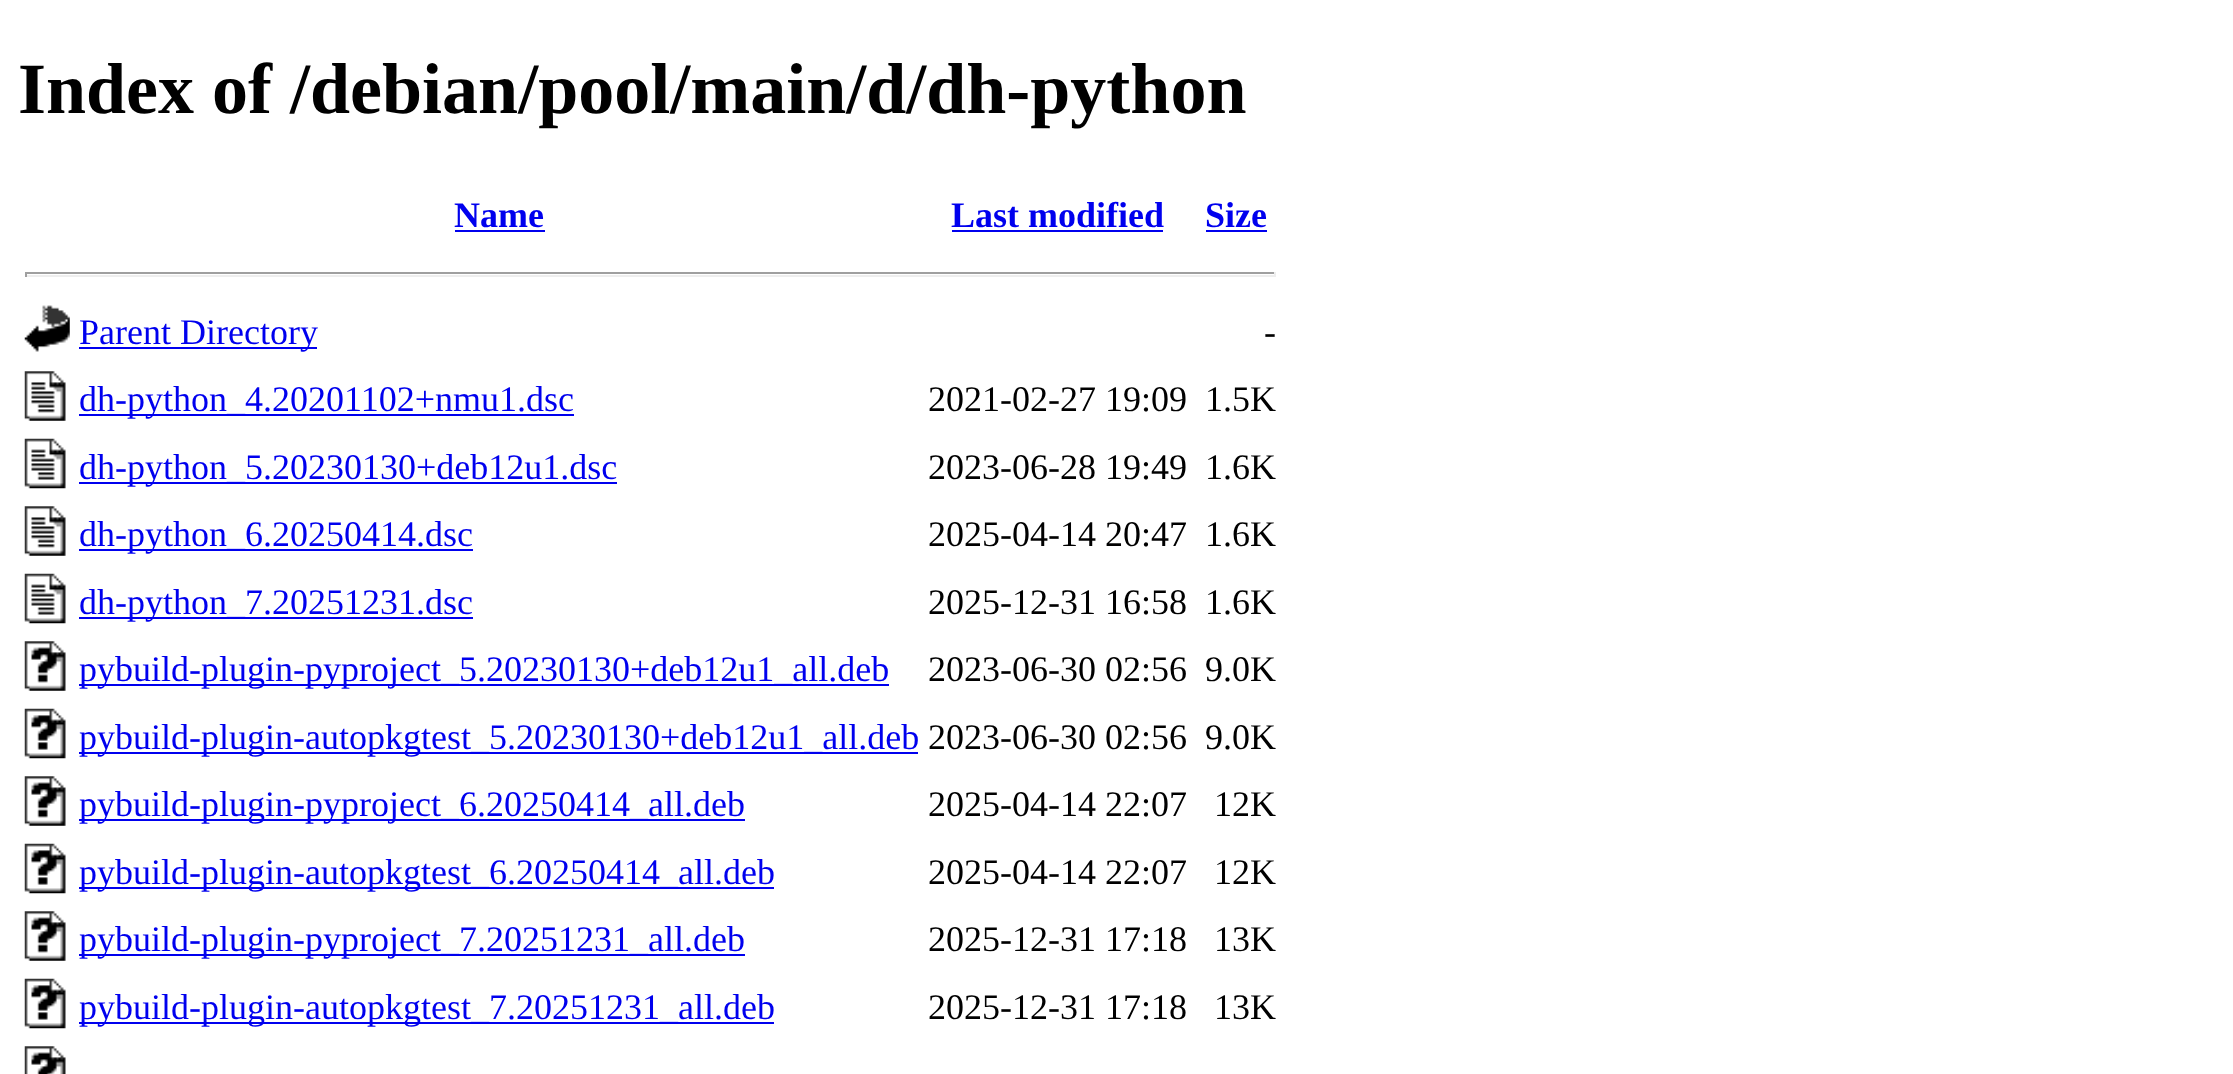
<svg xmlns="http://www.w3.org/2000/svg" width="2233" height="1074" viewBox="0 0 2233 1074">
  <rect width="100%" height="100%" fill="rgb(255,255,255)"/>
  <text x="18" y="113" font-family="Liberation Serif" font-size="72" font-weight="bold" fill="rgb(0,0,0)">Index of /debian/pool/main/d/dh-python</text>
  <text x="454" y="227" font-family="Liberation Serif" font-size="36" font-weight="bold" fill="rgb(0,0,238)">Name</text>
  <rect x="455" y="230" width="90" height="2" fill="rgb(0,0,238)"/>
  <text x="951" y="227" font-family="Liberation Serif" font-size="36" font-weight="bold" fill="rgb(0,0,238)">Last modified</text>
  <rect x="952" y="230" width="211" height="2" fill="rgb(0,0,238)"/>
  <text x="1205" y="227" font-family="Liberation Serif" font-size="36" font-weight="bold" fill="rgb(0,0,238)">Size</text>
  <rect x="1206" y="230" width="61" height="2" fill="rgb(0,0,238)"/>
  <rect x="25" y="272" width="1251" height="2" fill="rgb(159,159,159)"/>
  <rect x="1274" y="272" width="2" height="5" fill="rgb(238,238,238)"/>
  <rect x="25" y="275" width="1251" height="2" fill="rgb(238,238,238)"/>
  <rect x="25" y="272" width="2" height="5" fill="rgb(159,159,159)"/>
  <image x="24" y="305" width="46" height="47" href="pic1.png"/>
  <rect x="79" y="347" width="238" height="2" fill="rgb(0,0,238)"/>
  <text x="79" y="344" font-family="Liberation Serif" font-size="36" fill="rgb(0,0,238)">Parent Directory</text>
  <text x="1264" y="344" font-family="Liberation Serif" font-size="36" fill="rgb(0,0,0)">-</text>
  <image x="24" y="371" width="42" height="50" href="pic2.png"/>
  <rect x="79" y="414" width="495" height="2" fill="rgb(0,0,238)"/>
  <text x="79" y="411" font-family="Liberation Serif" font-size="36" fill="rgb(0,0,238)">dh-python_4.20201102+nmu1.dsc</text>
  <g font-family="Liberation Serif" font-size="36" fill="rgb(0,0,0)">
    <text x="928" y="411">2021-02-27 19:09</text>
    <text x="1205" y="411">1.5K</text>
  </g>
  <image x="24" y="438" width="42" height="51" href="pic3.png"/>
  <rect x="79" y="482" width="538" height="2" fill="rgb(0,0,238)"/>
  <text x="79" y="479" font-family="Liberation Serif" font-size="36" fill="rgb(0,0,238)">dh-python_5.20230130+deb12u1.dsc</text>
  <g font-family="Liberation Serif" font-size="36" fill="rgb(0,0,0)">
    <text x="928" y="479">2023-06-28 19:49</text>
    <text x="1205" y="479">1.6K</text>
  </g>
  <image x="24" y="506" width="42" height="50" href="pic2.png"/>
  <rect x="79" y="549" width="394" height="2" fill="rgb(0,0,238)"/>
  <text x="79" y="546" font-family="Liberation Serif" font-size="36" fill="rgb(0,0,238)">dh-python_6.20250414.dsc</text>
  <g font-family="Liberation Serif" font-size="36" fill="rgb(0,0,0)">
    <text x="928" y="546">2025-04-14 20:47</text>
    <text x="1205" y="546">1.6K</text>
  </g>
  <image x="24" y="573" width="42" height="51" href="pic4.png"/>
  <rect x="79" y="617" width="394" height="2" fill="rgb(0,0,238)"/>
  <text x="79" y="614" font-family="Liberation Serif" font-size="36" fill="rgb(0,0,238)">dh-python_7.20251231.dsc</text>
  <g font-family="Liberation Serif" font-size="36" fill="rgb(0,0,0)">
    <text x="928" y="614">2025-12-31 16:58</text>
    <text x="1205" y="614">1.6K</text>
  </g>
  <image x="24" y="641" width="42" height="50" href="pic5.png"/>
  <rect x="79" y="684" width="810" height="2" fill="rgb(0,0,238)"/>
  <text x="79" y="681" font-family="Liberation Serif" font-size="36" fill="rgb(0,0,238)">pybuild-plugin-pyproject_5.20230130+deb12u1_all.deb</text>
  <g font-family="Liberation Serif" font-size="36" fill="rgb(0,0,0)">
    <text x="928" y="681">2023-06-30 02:56</text>
    <text x="1205" y="681">9.0K</text>
  </g>
  <image x="24" y="708" width="42" height="51" href="pic6.png"/>
  <rect x="79" y="752" width="839" height="2" fill="rgb(0,0,238)"/>
  <text x="79" y="749" font-family="Liberation Serif" font-size="36" fill="rgb(0,0,238)">pybuild-plugin-autopkgtest_5.20230130+deb12u1_all.deb</text>
  <g font-family="Liberation Serif" font-size="36" fill="rgb(0,0,0)">
    <text x="928" y="749">2023-06-30 02:56</text>
    <text x="1205" y="749">9.0K</text>
  </g>
  <image x="24" y="776" width="42" height="50" href="pic7.png"/>
  <rect x="79" y="819" width="666" height="2" fill="rgb(0,0,238)"/>
  <text x="79" y="816" font-family="Liberation Serif" font-size="36" fill="rgb(0,0,238)">pybuild-plugin-pyproject_6.20250414_all.deb</text>
  <g font-family="Liberation Serif" font-size="36" fill="rgb(0,0,0)">
    <text x="928" y="816">2025-04-14 22:07</text>
    <text x="1214" y="816">12K</text>
  </g>
  <image x="24" y="843" width="42" height="51" href="pic6.png"/>
  <rect x="79" y="887" width="695" height="2" fill="rgb(0,0,238)"/>
  <text x="79" y="884" font-family="Liberation Serif" font-size="36" fill="rgb(0,0,238)">pybuild-plugin-autopkgtest_6.20250414_all.deb</text>
  <g font-family="Liberation Serif" font-size="36" fill="rgb(0,0,0)">
    <text x="928" y="884">2025-04-14 22:07</text>
    <text x="1214" y="884">12K</text>
  </g>
  <image x="24" y="911" width="42" height="50" href="pic5.png"/>
  <rect x="79" y="954" width="666" height="2" fill="rgb(0,0,238)"/>
  <text x="79" y="951" font-family="Liberation Serif" font-size="36" fill="rgb(0,0,238)">pybuild-plugin-pyproject_7.20251231_all.deb</text>
  <g font-family="Liberation Serif" font-size="36" fill="rgb(0,0,0)">
    <text x="928" y="951">2025-12-31 17:18</text>
    <text x="1214" y="951">13K</text>
  </g>
  <image x="24" y="978" width="42" height="51" href="pic6.png"/>
  <rect x="79" y="1022" width="695" height="2" fill="rgb(0,0,238)"/>
  <text x="79" y="1019" font-family="Liberation Serif" font-size="36" fill="rgb(0,0,238)">pybuild-plugin-autopkgtest_7.20251231_all.deb</text>
  <g font-family="Liberation Serif" font-size="36" fill="rgb(0,0,0)">
    <text x="928" y="1019">2025-12-31 17:18</text>
    <text x="1214" y="1019">13K</text>
  </g>
  <image x="24" y="1046" width="42" height="28" href="pic8.png"/>
</svg>
